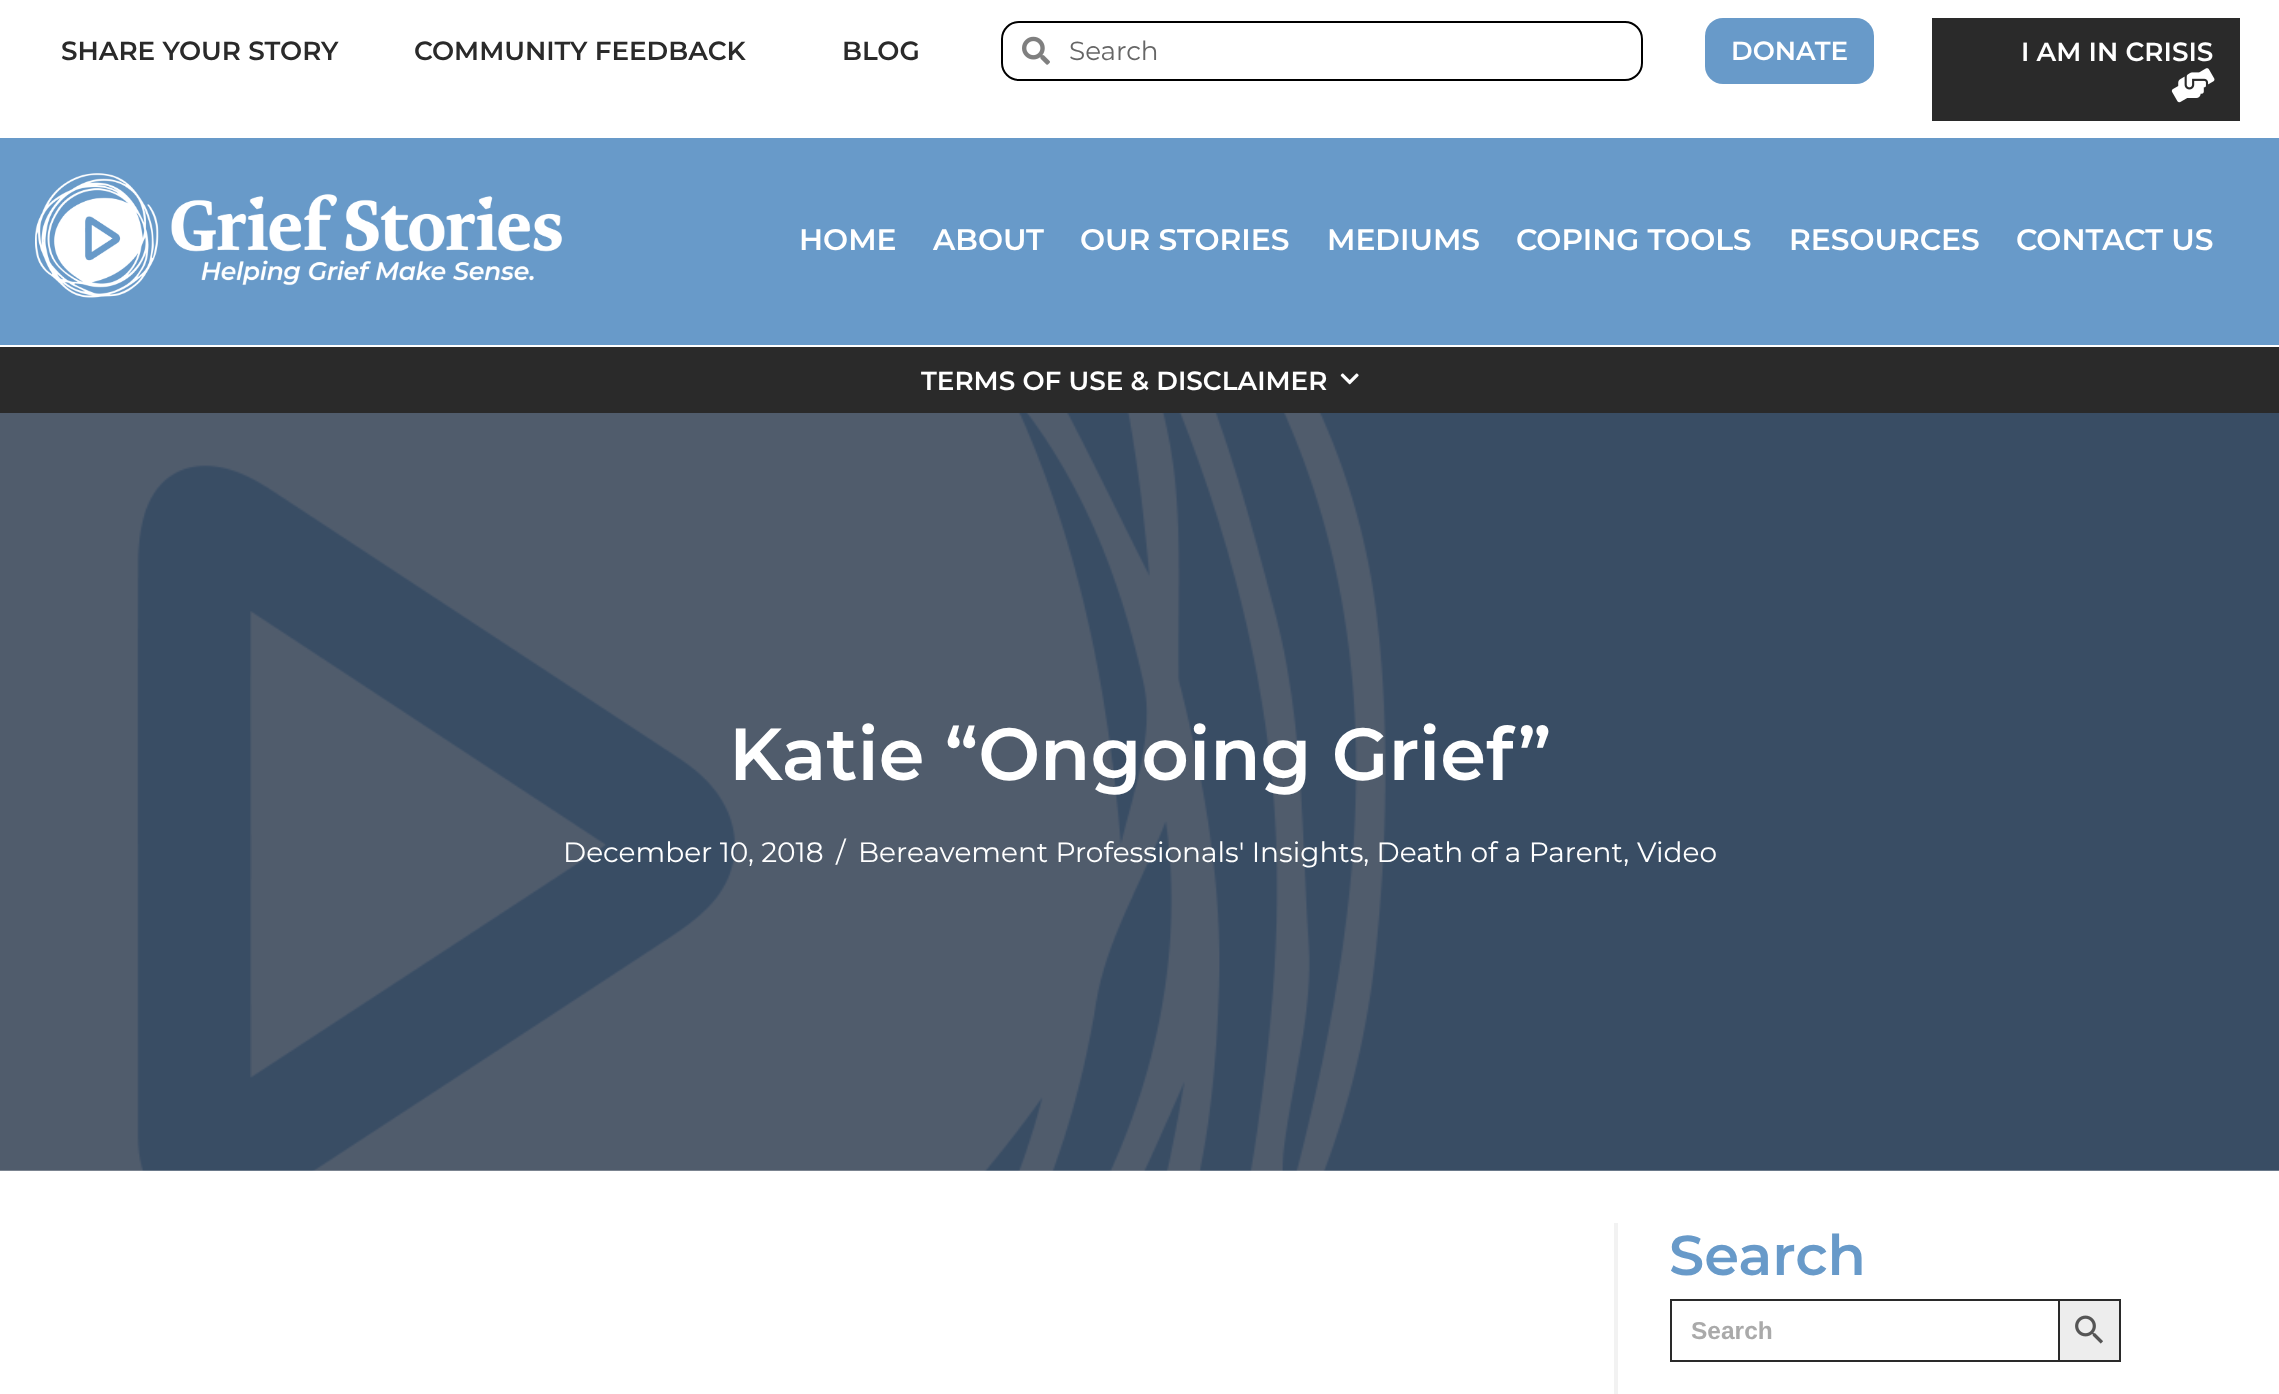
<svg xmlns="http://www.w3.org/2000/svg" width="2279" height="1394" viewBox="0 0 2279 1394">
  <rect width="100%" height="100%" fill="rgb(255,255,255)"/>
  <g font-family="Montserrat" font-size="26.25" font-weight="600" fill="rgb(42,42,42)">
    <text x="61" y="60">SHARE YOUR STORY</text>
    <text x="414" y="60">COMMUNITY FEEDBACK</text>
    <text x="842" y="60">BLOG</text>
  </g>
  <rect x="1002" y="22" width="640" height="58" rx="17" fill="none" stroke="rgb(0,0,0)" stroke-width="2"/>
  <image x="1022" y="36" width="28" height="29" href="pic1.png"/>
  <text x="1069" y="60" font-family="Montserrat" font-size="26.25" fill="rgb(102,102,102)">Search</text>
  <rect x="1705" y="18" width="169" height="66" rx="18" fill="rgb(104,154,201)"/>
  <text x="1731" y="60" font-family="Montserrat" font-size="26.25" font-weight="600" fill="rgb(255,255,255)">DONATE</text>
  <rect x="1932" y="18" width="308" height="103" fill="rgb(42,42,42)"/>
  <text x="2021" y="61" font-family="Montserrat" font-size="26.25" font-weight="600" fill="rgb(255,255,255)">I AM IN CRISIS</text>
  <image x="2171" y="68" width="44" height="35" href="pic2.png"/>
  <rect x="0" y="138" width="2279" height="207" fill="rgb(104,154,201)"/>
  <image x="35" y="173" width="527" height="125" href="pic3.png"/>
  <g font-family="Montserrat" font-size="29.75" font-weight="600" fill="rgb(255,255,255)">
    <text x="799" y="250">HOME</text>
    <text x="933" y="250">ABOUT</text>
    <text x="1080" y="250">OUR STORIES</text>
    <text x="1327" y="250">MEDIUMS</text>
    <text x="1516" y="250">COPING TOOLS</text>
    <text x="1789" y="250">RESOURCES</text>
    <text x="2016" y="250">CONTACT US</text>
  </g>
  <rect x="0" y="347" width="2279" height="66" fill="rgb(42,42,42)"/>
  <text x="921" y="390" font-family="Montserrat" font-size="26.25" font-weight="600" fill="rgb(255,255,255)">TERMS OF USE &amp; DISCLAIMER</text>
  <image x="1340" y="373" width="19" height="12" href="pic4.png"/>
  <image x="0" y="413" width="2279" height="758" href="pic5.png"/>
  <text x="729" y="780" font-family="Montserrat" font-size="73.5" font-weight="600" fill="rgb(255,255,255)">Katie “Ongoing Grief”</text>
  <g font-family="Montserrat" font-size="28" fill="rgb(255,255,255)">
    <text x="563" y="862">December 10, 2018</text>
    <text x="836" y="862">/</text>
    <text x="858" y="862">Bereavement Professionals' Insights, Death of a Parent,</text>
    <text x="1637" y="862">Video</text>
  </g>
  <rect x="1614" y="1223" width="4" height="171" fill="rgb(242,242,242)"/>
  <text x="1669" y="1275" font-family="Montserrat" font-size="56" font-weight="600" fill="rgb(104,154,201)">Search</text>
  <rect x="1670" y="1299" width="388" height="2" fill="rgb(42,42,42)"/>
  <rect x="1670" y="1360" width="388" height="2" fill="rgb(42,42,42)"/>
  <rect x="1670" y="1299" width="2" height="63" fill="rgb(42,42,42)"/>
  <text x="1691" y="1339" font-family="Liberation Sans" font-size="24.5" font-weight="bold" fill="rgb(170,170,170)">Search</text>
  <rect x="2059" y="1300" width="61" height="61" fill="rgb(237,237,237)" stroke="rgb(42,42,42)" stroke-width="2"/>
  <image x="2075" y="1315" width="28" height="29" href="pic6.png"/>
</svg>
